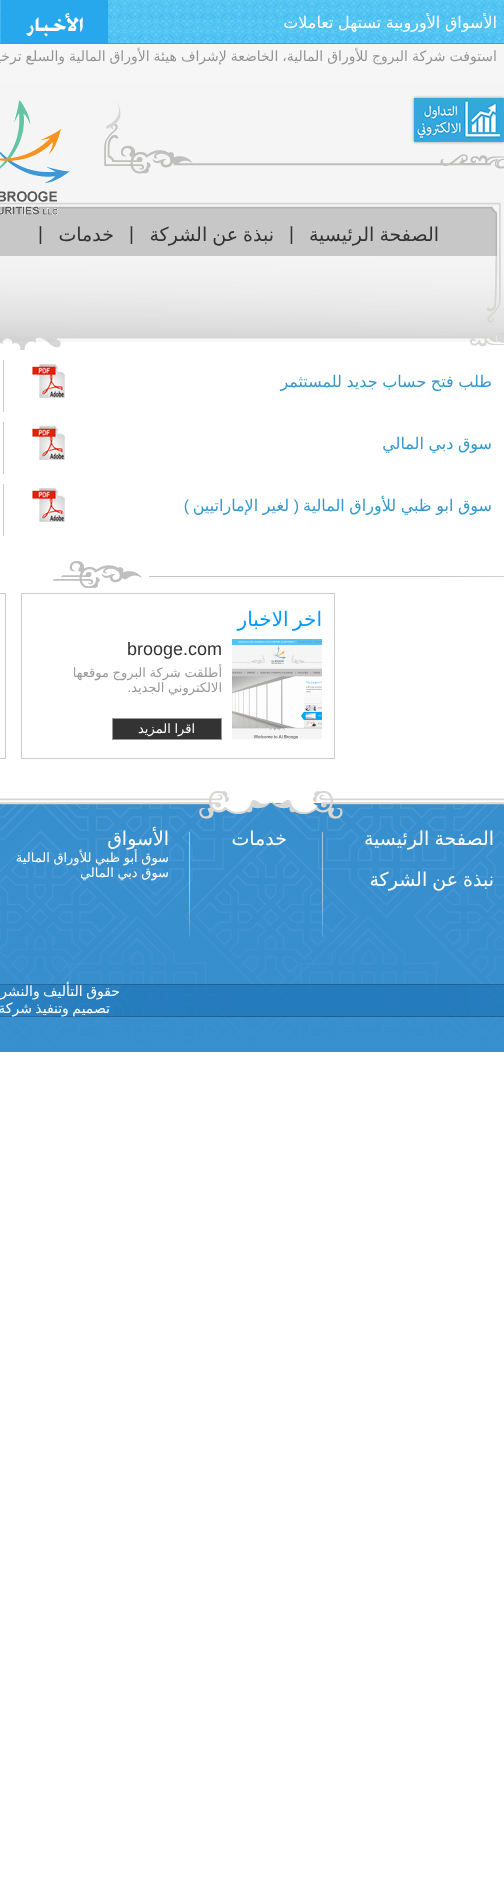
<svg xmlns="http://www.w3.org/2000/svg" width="504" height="1890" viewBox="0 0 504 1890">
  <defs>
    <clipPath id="clip1"><rect x="276" y="13" width="228" height="22"/></clipPath>
  </defs>
  <rect width="100%" height="100%" fill="rgb(255,255,255)"/>
  <image x="0" y="0" width="504" height="43" href="pic1.png"/>
  <rect x="0" y="43" width="504" height="1" fill="rgb(51,153,255)"/>
  <g clip-path="url(#clip1)">
    <text x="497" y="28" word-spacing="-0.5" font-family="DejaVu Sans" font-size="16" direction="rtl" fill="rgb(255,255,255)">الأسواق الأوروبية تستهل تعاملات</text>
  </g>
  <image x="0" y="0" width="108" height="43" href="pic2.png"/>
  <text x="497" y="61" word-spacing="-0.5" font-family="DejaVu Sans" font-size="14" direction="rtl" fill="rgb(0,0,0)">استوفت شركة البروج للأوراق المالية، الخاضعة لإشراف هيئة الأوراق المالية والسلع ترخيص رقم</text>
  <image x="0" y="44" width="504" height="306" href="pic5.png"/>
  <rect x="414" y="98" width="90" height="44" fill="rgb(136,136,136)" filter="blur(1.5px)"/>
  <image x="414" y="98" width="90" height="44" href="pic3.png"/>
  <image x="0" y="100" width="70" height="115" href="pic4.png"/>
  <text x="439" y="241" word-spacing="-1" font-family="DejaVu Sans" font-size="19" direction="rtl" fill="rgb(51,51,51)">الصفحة الرئيسية</text>
  <text x="289" y="240" font-family="Liberation Sans" font-size="19" fill="rgb(51,51,51)">|</text>
  <text x="274" y="241" word-spacing="-1" font-family="DejaVu Sans" font-size="19" direction="rtl" fill="rgb(51,51,51)">نبذة عن الشركة</text>
  <text x="129" y="240" font-family="Liberation Sans" font-size="19" fill="rgb(51,51,51)">|</text>
  <text x="114" y="241" font-family="DejaVu Sans" font-size="19" direction="rtl" fill="rgb(51,51,51)">خدمات</text>
  <text x="38" y="240" font-family="Liberation Sans" font-size="19" fill="rgb(51,51,51)">|</text>
  <rect x="3" y="360" width="1" height="52" fill="rgb(204,204,204)"/>
  <text x="492" y="387" word-spacing="-0.5" font-family="DejaVu Sans" font-size="16" direction="rtl" fill="rgb(51,153,204)">طلب فتح حساب جديد للمستثمر</text>
  <image x="32" y="364" width="33" height="34" href="pic6.png"/>
  <rect x="3" y="422" width="1" height="52" fill="rgb(204,204,204)"/>
  <text x="492" y="449" word-spacing="-0.5" font-family="DejaVu Sans" font-size="16" direction="rtl" fill="rgb(51,153,204)">سوق دبي المالي</text>
  <image x="32" y="426" width="33" height="34" href="pic6.png"/>
  <rect x="3" y="484" width="1" height="52" fill="rgb(204,204,204)"/>
  <text x="492" y="511" word-spacing="-0.5" font-family="DejaVu Sans" font-size="16" direction="rtl" fill="rgb(51,153,204)">سوق ابو ظبي للأوراق المالية</text>
  <text x="299" y="511" font-family="Liberation Sans" font-size="16" direction="rtl" fill="rgb(51,153,204)">(</text>
  <text x="289" y="511" word-spacing="-0.5" font-family="DejaVu Sans" font-size="16" direction="rtl" fill="rgb(51,153,204)">لغير الإماراتيين</text>
  <text x="189" y="511" font-family="Liberation Sans" font-size="16" direction="rtl" fill="rgb(51,153,204)">)</text>
  <image x="32" y="488" width="33" height="34" href="pic6.png"/>
  <image x="53" y="561" width="451" height="27" href="pic7.png"/>
  <rect x="21.5" y="593.5" width="313" height="165" fill="none" stroke="rgb(204,204,204)"/>
  <text x="322" y="626" word-spacing="-2" font-family="DejaVu Sans" font-size="20" direction="rtl" fill="rgb(0,153,255)">اخر الاخبار</text>
  <image x="232" y="639" width="90" height="100" href="pic8.png"/>
  <text x="127" y="655" font-family="Liberation Sans" font-size="18" fill="rgb(51,51,51)">brooge.com</text>
  <g font-family="DejaVu Sans" font-size="13" direction="rtl" fill="rgb(153,153,153)">
    <text>
      <tspan x="222" y="677" word-spacing="-0.5">أطلقت شركة البروج موقعها</tspan>
      <tspan x="222" y="692" word-spacing="-0.5">الالكتروني الجديد</tspan>
    </text>
  </g>
  <text x="131" y="692" font-family="Liberation Sans" font-size="13" direction="rtl" fill="rgb(153,153,153)">.</text>
  <rect x="112.5" y="718.5" width="109" height="21" fill="rgb(51,51,51)" stroke="rgb(153,153,153)"/>
  <text x="195" y="733" word-spacing="-0.5" font-family="DejaVu Sans" font-size="13" direction="rtl" fill="rgb(255,255,255)">اقرا المزيد</text>
  <rect x="-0.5" y="593.5" width="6" height="165" fill="none" stroke="rgb(204,204,204)"/>
  <image x="0" y="791" width="504" height="261" href="pic9.png"/>
  <image x="322" y="832" width="1" height="105" href="pic10.png"/>
  <g font-family="DejaVu Sans" font-size="19" direction="rtl" fill="rgb(255,255,255)">
    <text x="494" y="845" word-spacing="-1">الصفحة الرئيسية</text>
    <text x="494" y="886" word-spacing="-1">نبذة عن الشركة</text>
  </g>
  <image x="189" y="832" width="1" height="105" href="pic11.png"/>
  <g font-family="DejaVu Sans" font-size="19" direction="rtl" fill="rgb(255,255,255)">
    <text x="287" y="845">خدمات</text>
    <text x="169" y="845">الأسواق</text>
  </g>
  <g font-family="DejaVu Sans" font-size="13" direction="rtl" fill="rgb(255,255,255)">
    <text>
      <tspan x="169" y="862" word-spacing="-0.5">سوق أبو ظبي للأوراق المالية</tspan>
      <tspan x="169" y="877" word-spacing="-0.5">سوق دبي المالي</tspan>
    </text>
  </g>
  <g font-family="DejaVu Sans" font-size="14" direction="rtl" fill="rgb(255,255,255)">
    <text x="120" y="996" word-spacing="-1">حقوق التأليف والنشر</text>
    <text x="110" y="1013" word-spacing="-1">تصميم وتنفيذ شركة</text>
  </g>
</svg>
